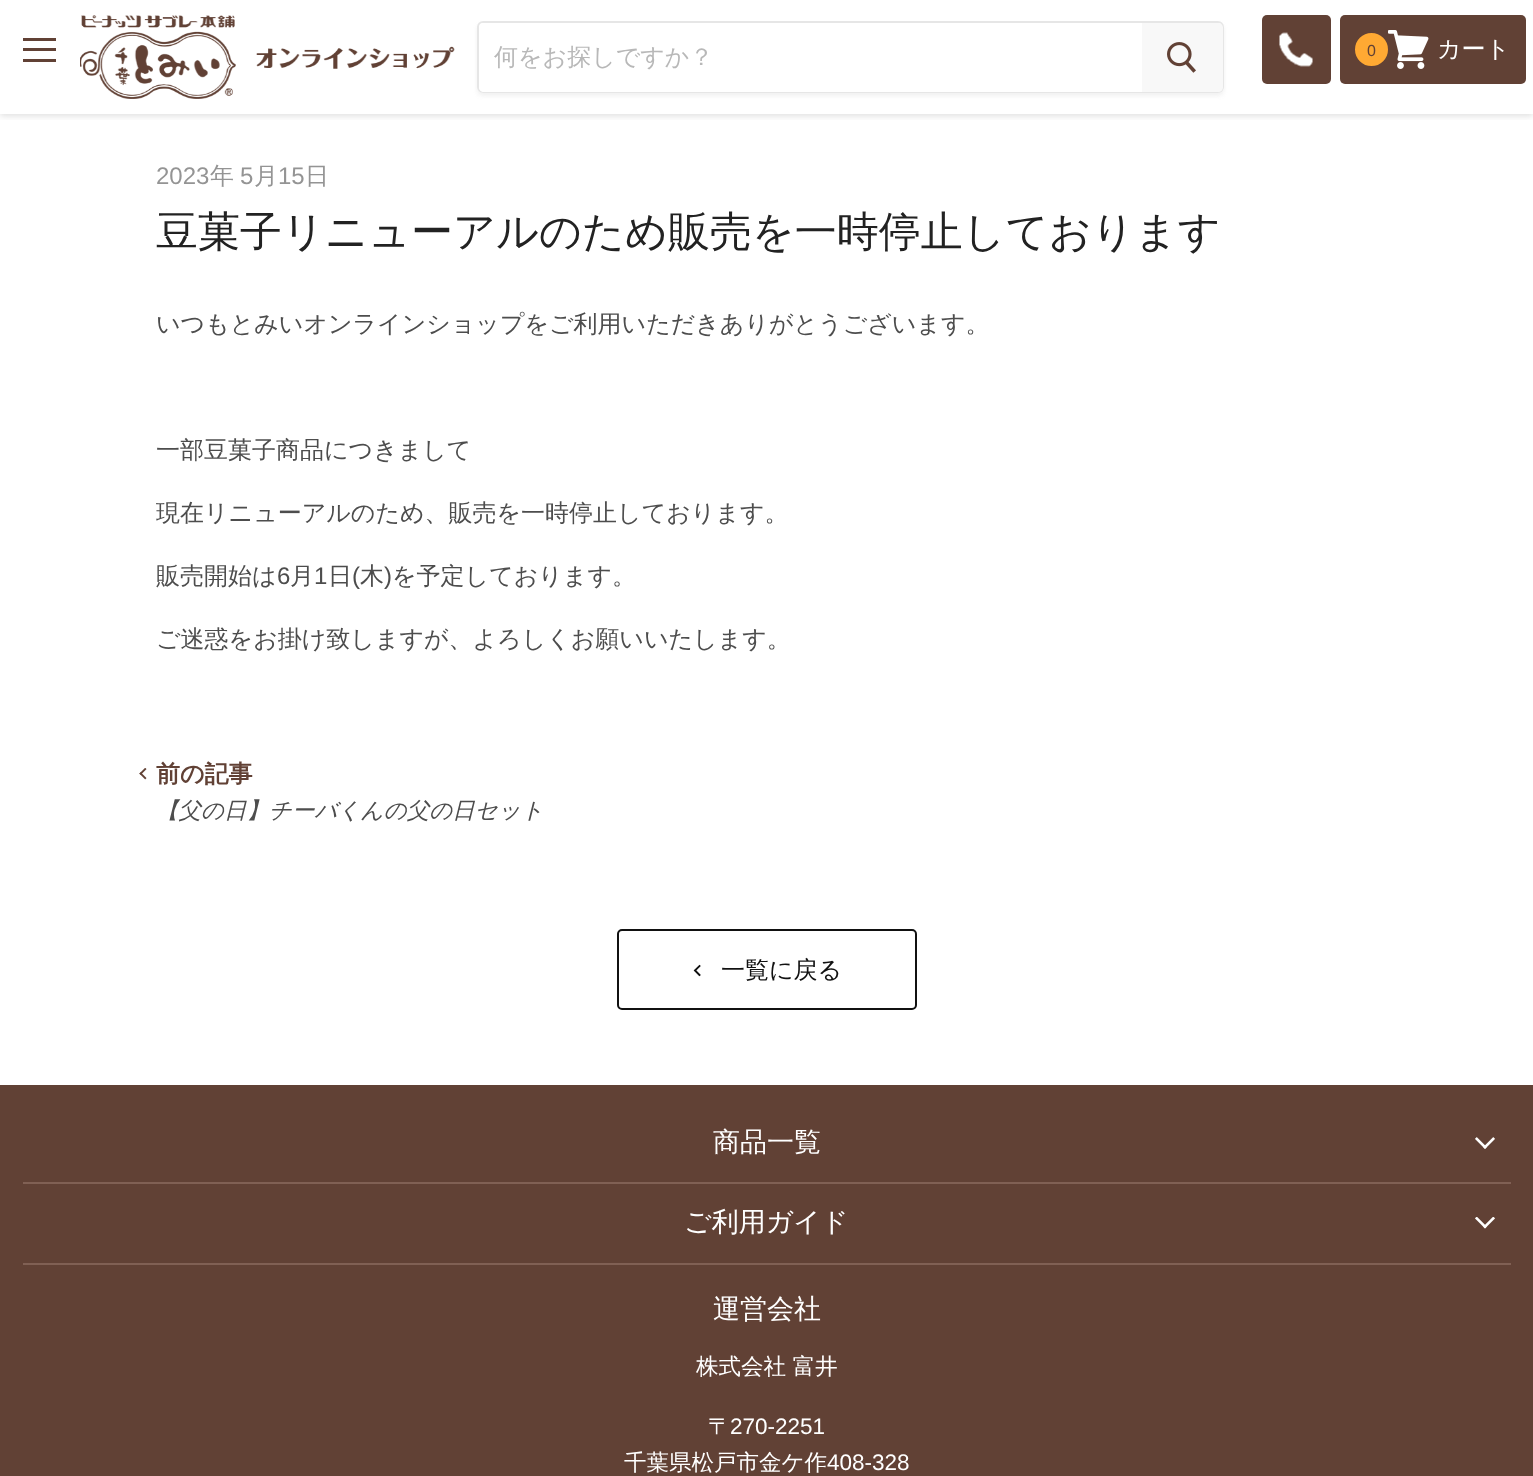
<svg xmlns="http://www.w3.org/2000/svg" width="1533" height="1476" viewBox="0 0 1533 1476">
  <defs>
    <clipPath id="clip1"><rect x="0" y="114" width="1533" height="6"/></clipPath>
    <clipPath id="clip2"><path d="M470 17H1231V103H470ZM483 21H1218C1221.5 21 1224 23.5 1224 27V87C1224 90.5 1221.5 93 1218 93H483C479.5 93 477 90.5 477 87V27C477 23.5 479.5 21 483 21Z" clip-rule="evenodd"/></clipPath>
  </defs>
  <rect width="100%" height="100%" fill="rgb(255,255,255)"/>
  <g clip-path="url(#clip1)">
    <rect x="0" y="2" width="1533" height="114" fill="rgba(128,128,128,0.25)" filter="blur(3px)"/>
  </g>
  <rect x="23" y="38" width="33" height="3" fill="rgb(97,65,53)"/>
  <rect x="23" y="48" width="33" height="3" fill="rgb(97,65,53)"/>
  <rect x="23" y="59" width="33" height="3" fill="rgb(97,65,53)"/>
  <image x="80" y="15" width="375" height="84" href="pic1.png"/>
  <g clip-path="url(#clip2)">
    <rect x="477" y="24" width="747" height="72" rx="6" fill="rgba(128,128,128,0.11)" filter="blur(2px)"/>
  </g>
  <rect x="478" y="22" width="745" height="70" rx="5" fill="none" stroke="rgba(128,128,128,0.2)" stroke-width="2"/>
  <path d="M484 23H1142V92H484C481 92 479 90 479 87V28C479 25 481 23 484 23Z" fill="rgb(255,255,255)"/>
  <text x="494" y="65" font-family="WenQuanYi Zen Hei" font-size="24" font-weight="500" fill="rgb(184,184,184)">何をお探しですか？</text>
  <path d="M1142 23H1218C1221 23 1223 25 1223 28V87C1223 90 1221 92 1218 92H1142Z" fill="rgb(248,248,248)"/>
  <image x="1167" y="42" width="29" height="31" href="pic2.png"/>
  <rect x="1262" y="15" width="69" height="69" rx="5" fill="rgb(97,65,53)"/>
  <image x="1279" y="32" width="34" height="35" href="pic3.png"/>
  <rect x="1340" y="15" width="186" height="69" rx="5" fill="rgb(97,65,53)"/>
  <circle cx="1371.5" cy="49.5" r="15" fill="rgb(255,169,51)" stroke="rgb(255,169,51)" stroke-width="3"/>
  <text x="1367" y="56" font-family="Liberation Sans" font-size="16" fill="rgb(97,65,53)">0</text>
  <image x="1388" y="30" width="41" height="39" href="pic4.png"/>
  <text x="1437" y="57" font-family="WenQuanYi Zen Hei" font-size="24" font-weight="500" fill="rgb(255,255,255)">カート</text>
  <text x="156" y="184" font-family="Liberation Sans" font-size="24" fill="rgb(148,148,148)">2023</text>
  <text x="210" y="184" font-family="WenQuanYi Zen Hei" font-size="24" font-weight="500" fill="rgb(148,148,148)">年</text>
  <text x="240" y="184" font-family="Liberation Sans" font-size="24" fill="rgb(148,148,148)">5</text>
  <text x="254" y="184" font-family="WenQuanYi Zen Hei" font-size="24" font-weight="500" fill="rgb(148,148,148)">月</text>
  <text x="278" y="184" font-family="Liberation Sans" font-size="24" fill="rgb(148,148,148)">15</text>
  <text x="305" y="184" font-family="WenQuanYi Zen Hei" font-size="24" font-weight="500" fill="rgb(148,148,148)">日</text>
  <text x="156" y="246" font-family="WenQuanYi Zen Hei" font-size="42" font-weight="500" fill="rgb(34,34,34)">豆菓子リニューアルのため販売を一時停止しております</text>
  <g font-family="WenQuanYi Zen Hei" font-size="24" font-weight="500" fill="rgb(77,77,77)">
    <text x="156" y="332">いつもとみいオンラインショップをご利用いただきありがとうございます。</text>
    <text x="156" y="458">一部豆菓子商品につきまして</text>
    <text x="156" y="521">現在リニューアルのため、販売を一時停止しております。</text>
    <text x="156" y="584">販売開始は</text>
  </g>
  <text x="277" y="584" font-family="Liberation Sans" font-size="24" fill="rgb(77,77,77)">6</text>
  <text x="290" y="584" font-family="WenQuanYi Zen Hei" font-size="24" font-weight="500" fill="rgb(77,77,77)">月</text>
  <text x="314" y="584" font-family="Liberation Sans" font-size="24" fill="rgb(77,77,77)">1</text>
  <text x="328" y="584" font-family="WenQuanYi Zen Hei" font-size="24" font-weight="500" fill="rgb(77,77,77)">日</text>
  <text x="352" y="584" font-family="Liberation Sans" font-size="24" fill="rgb(77,77,77)">(</text>
  <text x="360" y="584" font-family="WenQuanYi Zen Hei" font-size="24" font-weight="500" fill="rgb(77,77,77)">木</text>
  <text x="384" y="584" font-family="Liberation Sans" font-size="24" fill="rgb(77,77,77)">)</text>
  <g font-family="WenQuanYi Zen Hei" font-size="24" font-weight="500" fill="rgb(77,77,77)">
    <text x="392" y="584">を予定しております。</text>
    <text x="156" y="647">ご迷惑をお掛け致しますが、よろしくお願いいたします。</text>
  </g>
  <image x="139" y="768" width="8" height="12" href="pic5.png"/>
  <text x="156" y="782" font-family="WenQuanYi Zen Hei" font-size="24" font-weight="bold" fill="rgb(97,65,53)">前の記事</text>
  <text x="156" y="818" font-family="WenQuanYi Zen Hei" font-size="22.5" font-weight="500" font-style="italic" fill="rgb(77,77,77)">【父の日】チーバくんの父の日セット</text>
  <rect x="618" y="930" width="298" height="79" rx="4" fill="none" stroke="rgb(17,17,17)" stroke-width="2"/>
  <path d="M695 970.5L699.5 975M695 970.5L699.5 966" fill="none" stroke="rgb(17,17,17)" stroke-width="1.9" stroke-linecap="square"/>
  <text x="721" y="978" font-family="WenQuanYi Zen Hei" font-size="24" font-weight="500" fill="rgb(17,17,17)">一覧に戻る</text>
  <rect x="0" y="1085" width="1533" height="391" fill="rgb(97,65,53)"/>
  <rect x="23" y="1182" width="1488" height="2" fill="rgb(128,96,84)"/>
  <text x="713" y="1151" font-family="WenQuanYi Zen Hei" font-size="27" font-weight="500" fill="rgb(255,255,255)">商品一覧</text>
  <image x="1475" y="1137" width="20" height="12" href="pic6.png"/>
  <rect x="23" y="1263" width="1488" height="2" fill="rgb(128,96,84)"/>
  <text x="684" y="1231" font-family="WenQuanYi Zen Hei" font-size="27" font-weight="500" fill="rgb(255,255,255)">ご利用ガイド</text>
  <image x="1475" y="1217" width="20" height="12" href="pic7.png"/>
  <text x="713" y="1318" font-family="WenQuanYi Zen Hei" font-size="27" font-weight="500" fill="rgb(255,255,255)">運営会社</text>
  <g font-family="WenQuanYi Zen Hei" font-size="22.5" font-weight="500" fill="rgb(255,255,255)">
    <text x="696" y="1374">株式会社 富井</text>
    <text x="708" y="1434">〒</text>
  </g>
  <text x="730" y="1434" font-family="Liberation Sans" font-size="22.5" fill="rgb(255,255,255)">270-2251</text>
  <text x="624" y="1470" font-family="WenQuanYi Zen Hei" font-size="22.5" font-weight="500" fill="rgb(255,255,255)">千葉県松戸市金ケ作</text>
  <text x="827" y="1470" font-family="Liberation Sans" font-size="22.5" fill="rgb(255,255,255)">408-328</text>
</svg>
